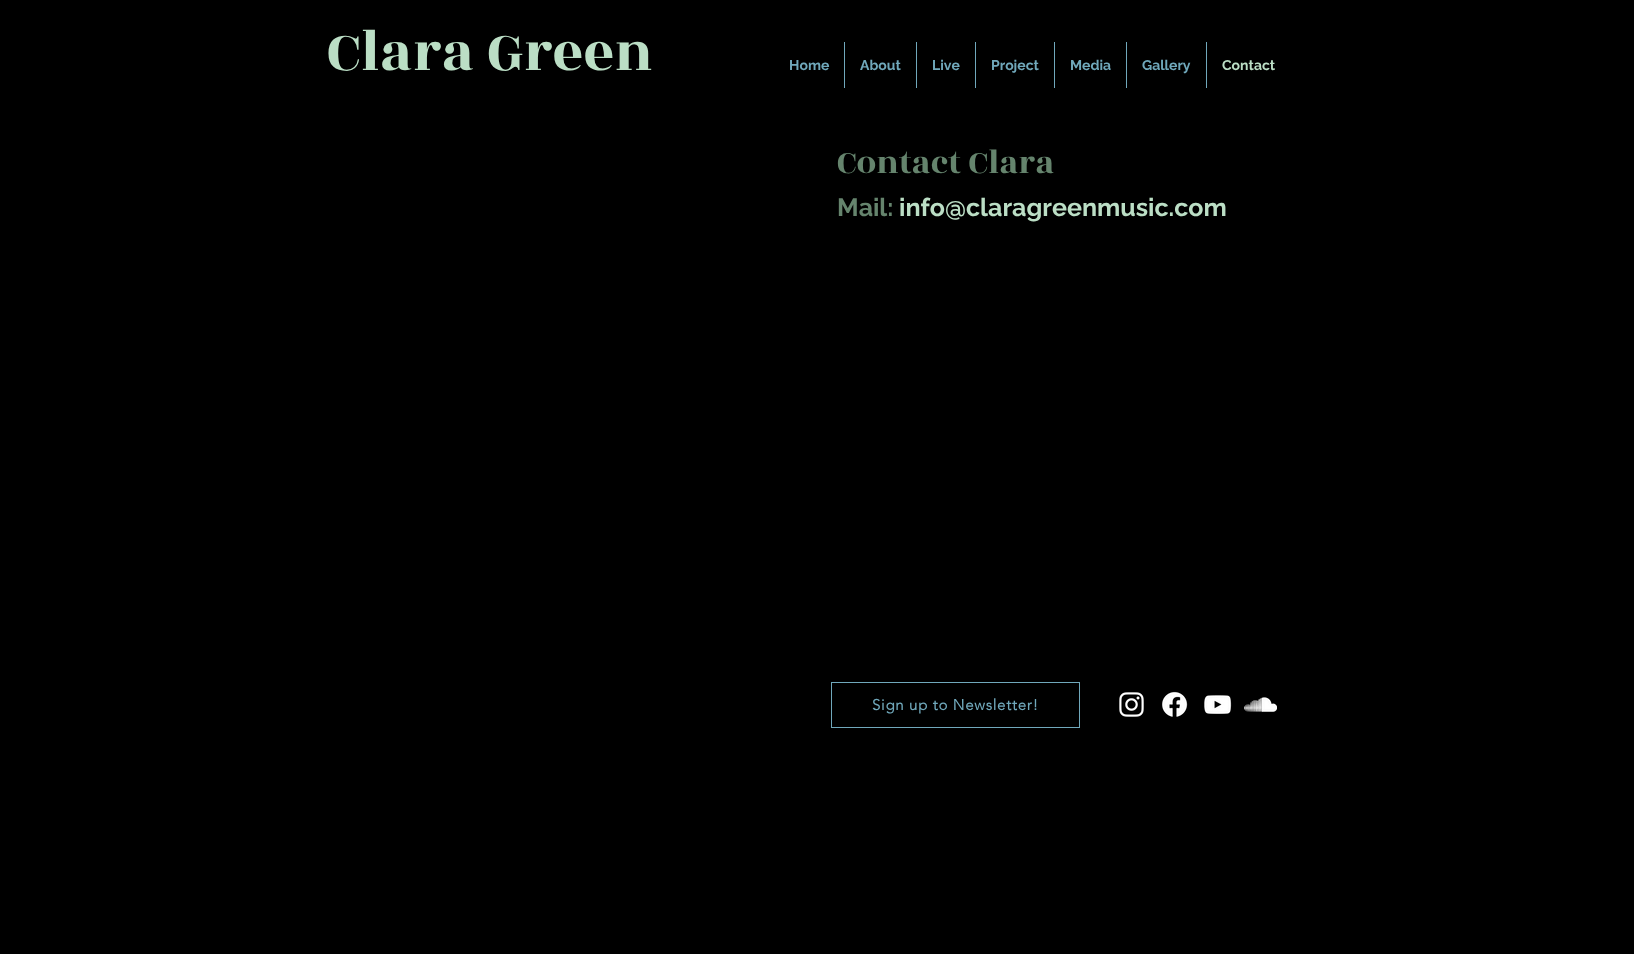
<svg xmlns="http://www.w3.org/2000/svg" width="1634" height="954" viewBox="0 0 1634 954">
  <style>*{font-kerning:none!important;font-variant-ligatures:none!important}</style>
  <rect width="100%" height="100%" fill="rgb(0,0,0)"/>
  <text x="327" y="70" font-family="Rozha One" font-size="60" fill="rgb(187,222,197)">Clara Green</text>
  <text x="789" y="70" font-family="Raleway" font-size="14" font-weight="bold" fill="rgb(112,168,187)">Home</text>
  <rect x="844" y="42" width="1" height="46" fill="rgb(112,168,187)"/>
  <text x="860" y="70" font-family="Raleway" font-size="14" font-weight="bold" fill="rgb(112,168,187)">About</text>
  <rect x="916" y="42" width="1" height="46" fill="rgb(112,168,187)"/>
  <text x="932" y="70" font-family="Raleway" font-size="14" font-weight="bold" fill="rgb(112,168,187)">Live</text>
  <rect x="975" y="42" width="1" height="46" fill="rgb(112,168,187)"/>
  <text x="991" y="70" font-family="Raleway" font-size="14" font-weight="bold" fill="rgb(112,168,187)">Project</text>
  <rect x="1054" y="42" width="1" height="46" fill="rgb(112,168,187)"/>
  <text x="1070" y="70" font-family="Raleway" font-size="14" font-weight="bold" fill="rgb(112,168,187)">Media</text>
  <rect x="1126" y="42" width="1" height="46" fill="rgb(112,168,187)"/>
  <text x="1142" y="70" font-family="Raleway" font-size="14" font-weight="bold" fill="rgb(112,168,187)">Gallery</text>
  <rect x="1206" y="42" width="1" height="46" fill="rgb(112,168,187)"/>
  <text x="1222" y="70" font-family="Raleway" font-size="14" font-weight="bold" fill="rgb(187,222,197)">Contact</text>
  <text x="837" y="173" font-family="Rozha One" font-size="35" fill="rgb(101,132,109)">Contact Clara</text>
  <text x="837" y="216" font-family="Raleway" font-size="25" font-weight="bold" fill="rgb(101,132,109)">Mail:</text>
  <text x="899" y="216" font-family="Raleway" font-size="25" font-weight="bold" fill="rgb(187,222,197)">info@claragreenmusic.com</text>
  <rect x="831.5" y="682.5" width="248" height="45" fill="none" stroke="rgb(112,168,187)"/>
  <text x="872" y="710" font-family="'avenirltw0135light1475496'" font-size="15" font-weight="bold" letter-spacing="0.75" fill="rgb(112,168,187)">Sign up to Newsletter!</text>
  <image x="1119" y="692" width="25" height="25" href="pic1.png"/>
  <image x="1162" y="691" width="26" height="26" href="pic2.png"/>
  <image x="1204" y="695" width="28" height="19" href="pic3.png"/>
  <image x="1244" y="697" width="33" height="15" href="pic4.png"/>
</svg>
